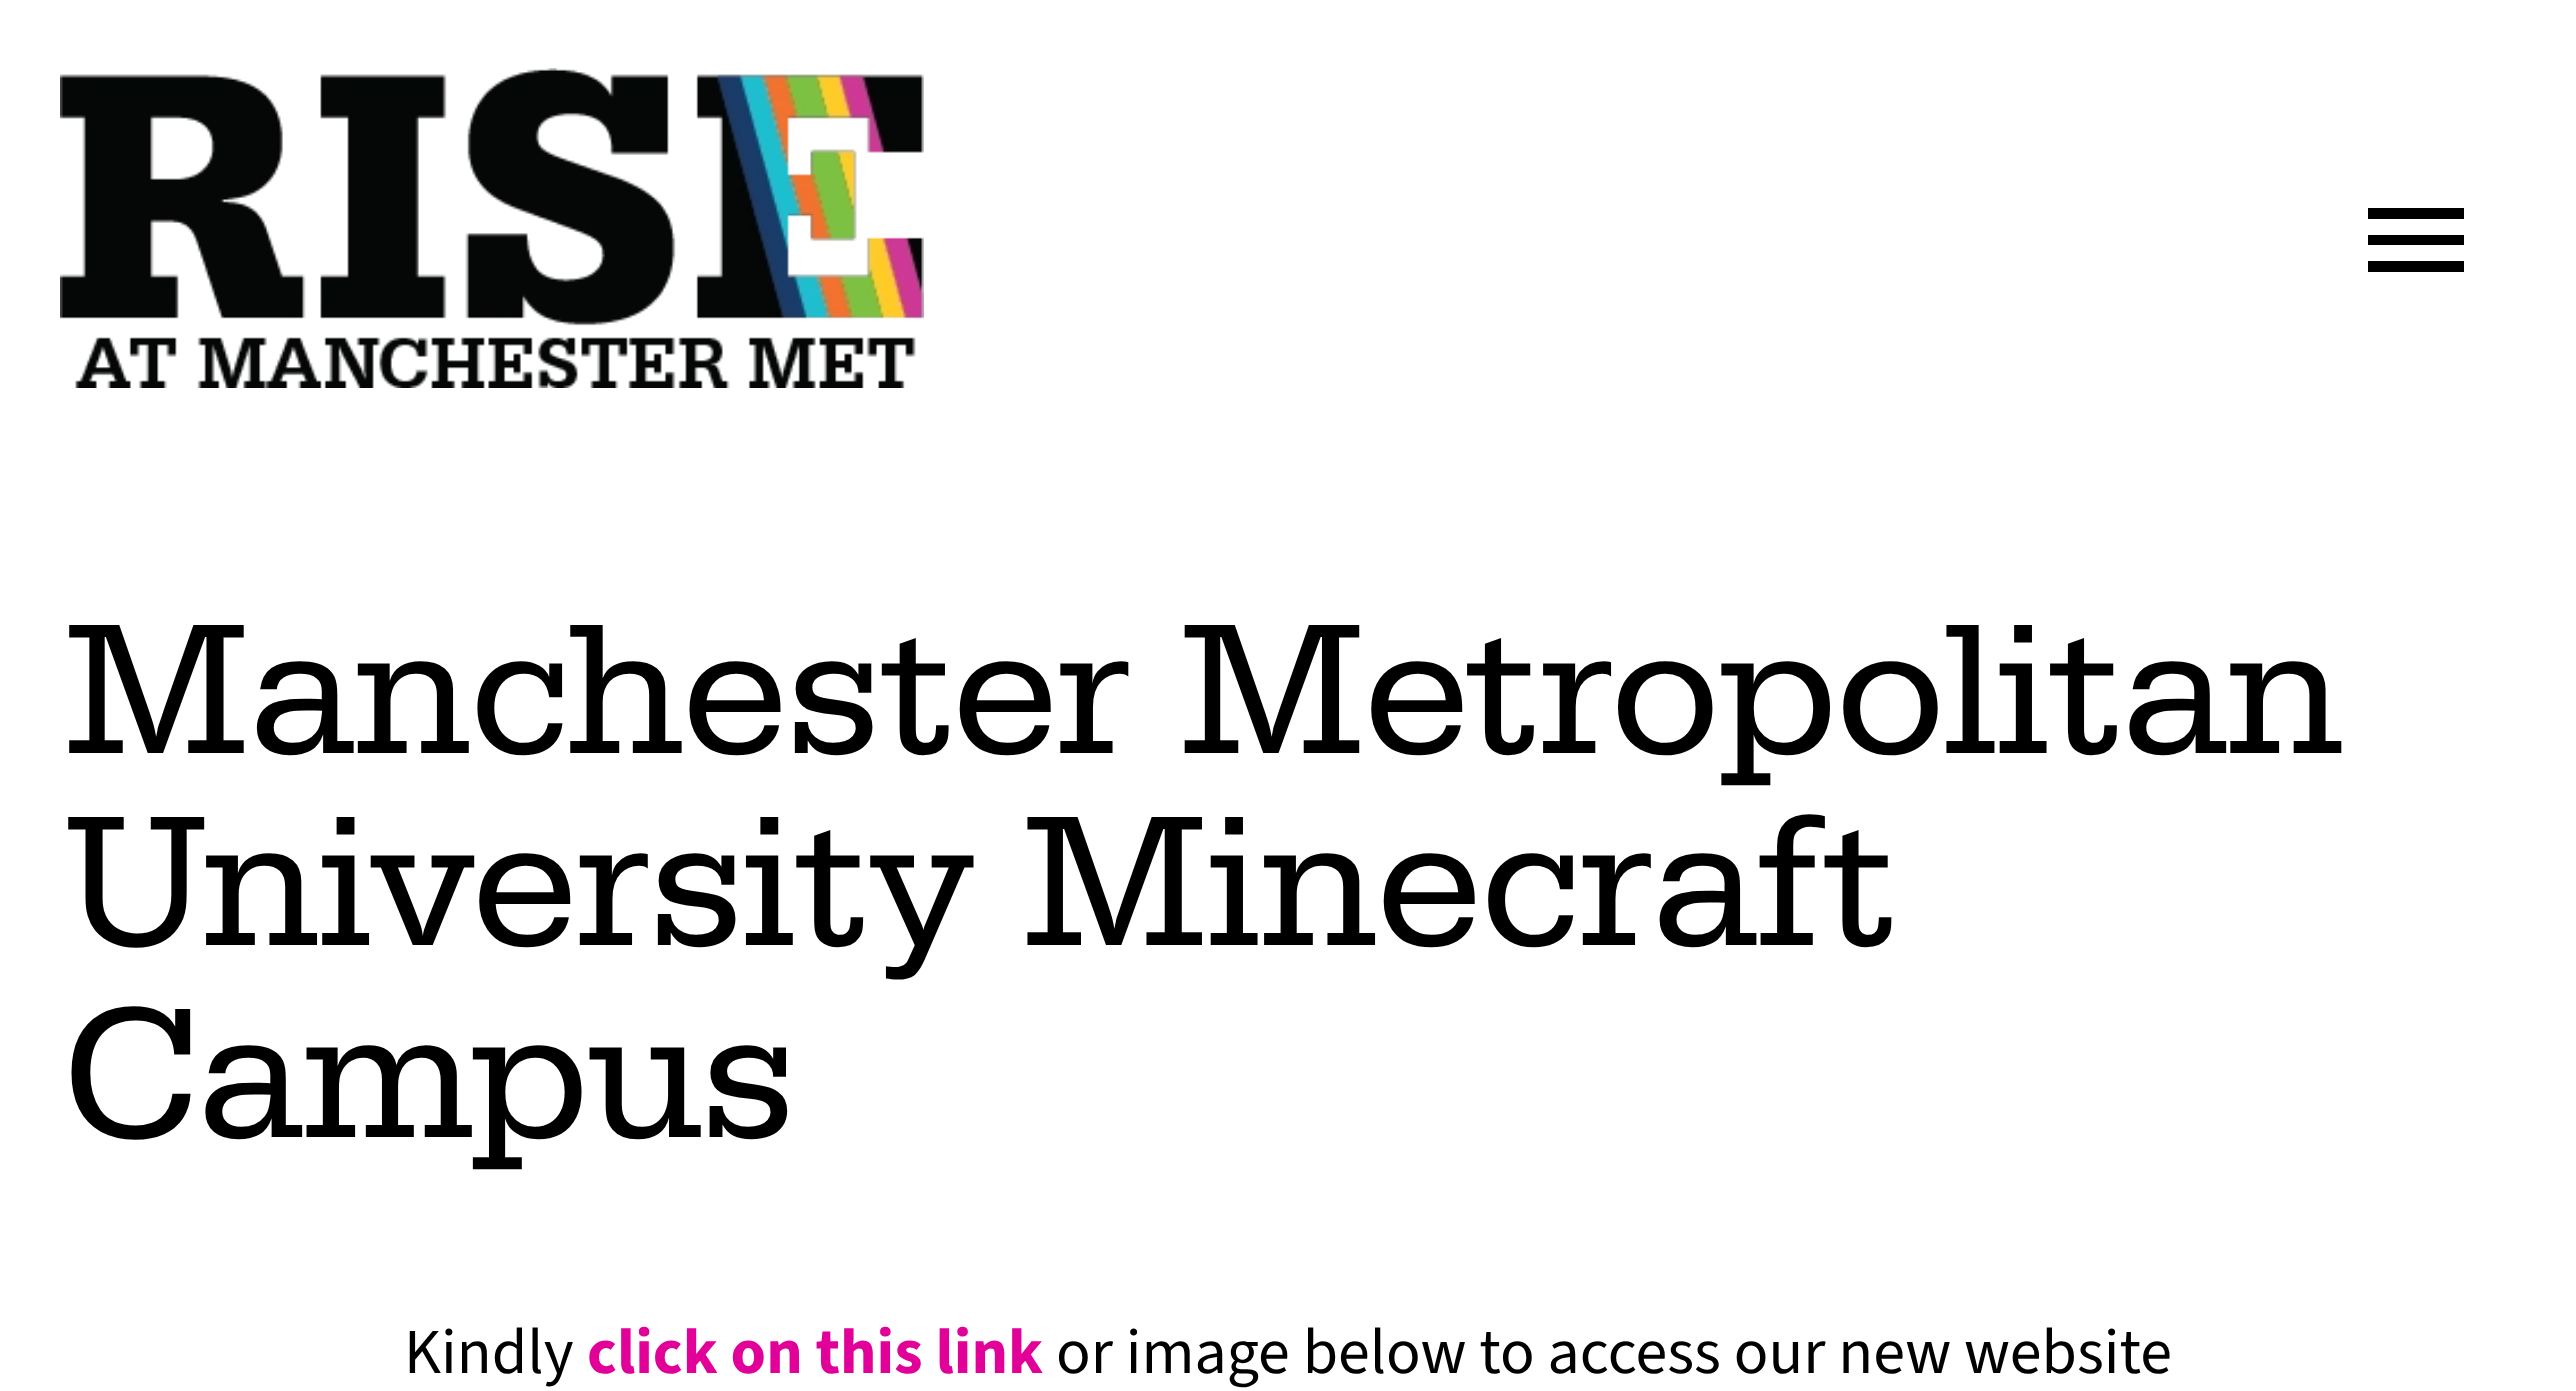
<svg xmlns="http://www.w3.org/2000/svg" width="2576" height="1391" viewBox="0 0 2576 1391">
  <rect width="100%" height="100%" fill="rgb(255,255,255)"/>
  <image x="60" y="68" width="864" height="320" href="pic1.png"/>
  <path d="M2368 272H2464V261H2368ZM2368 245H2464V235H2368ZM2368 208V219H2464V208Z" fill="rgb(0,0,0)"/>
  <g font-family="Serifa" font-size="192" fill="rgb(0,0,0)">
    <text>
      <tspan x="64" y="753">Manchester Metropolitan</tspan>
      <tspan x="64" y="945">University Minecraft</tspan>
      <tspan x="64" y="1137">Campus</tspan>
    </text>
  </g>
  <text x="404" y="1373" font-family="'Source Sans 3'" font-size="64" fill="rgb(0,0,0)">Kindly</text>
  <text x="587" y="1373" font-family="'Source Sans 3'" font-size="64" font-weight="bold" fill="rgb(225,0,152)">click on this link</text>
  <text x="1056" y="1373" font-family="'Source Sans 3'" font-size="64" fill="rgb(0,0,0)">or image below to access our new website</text>
</svg>
